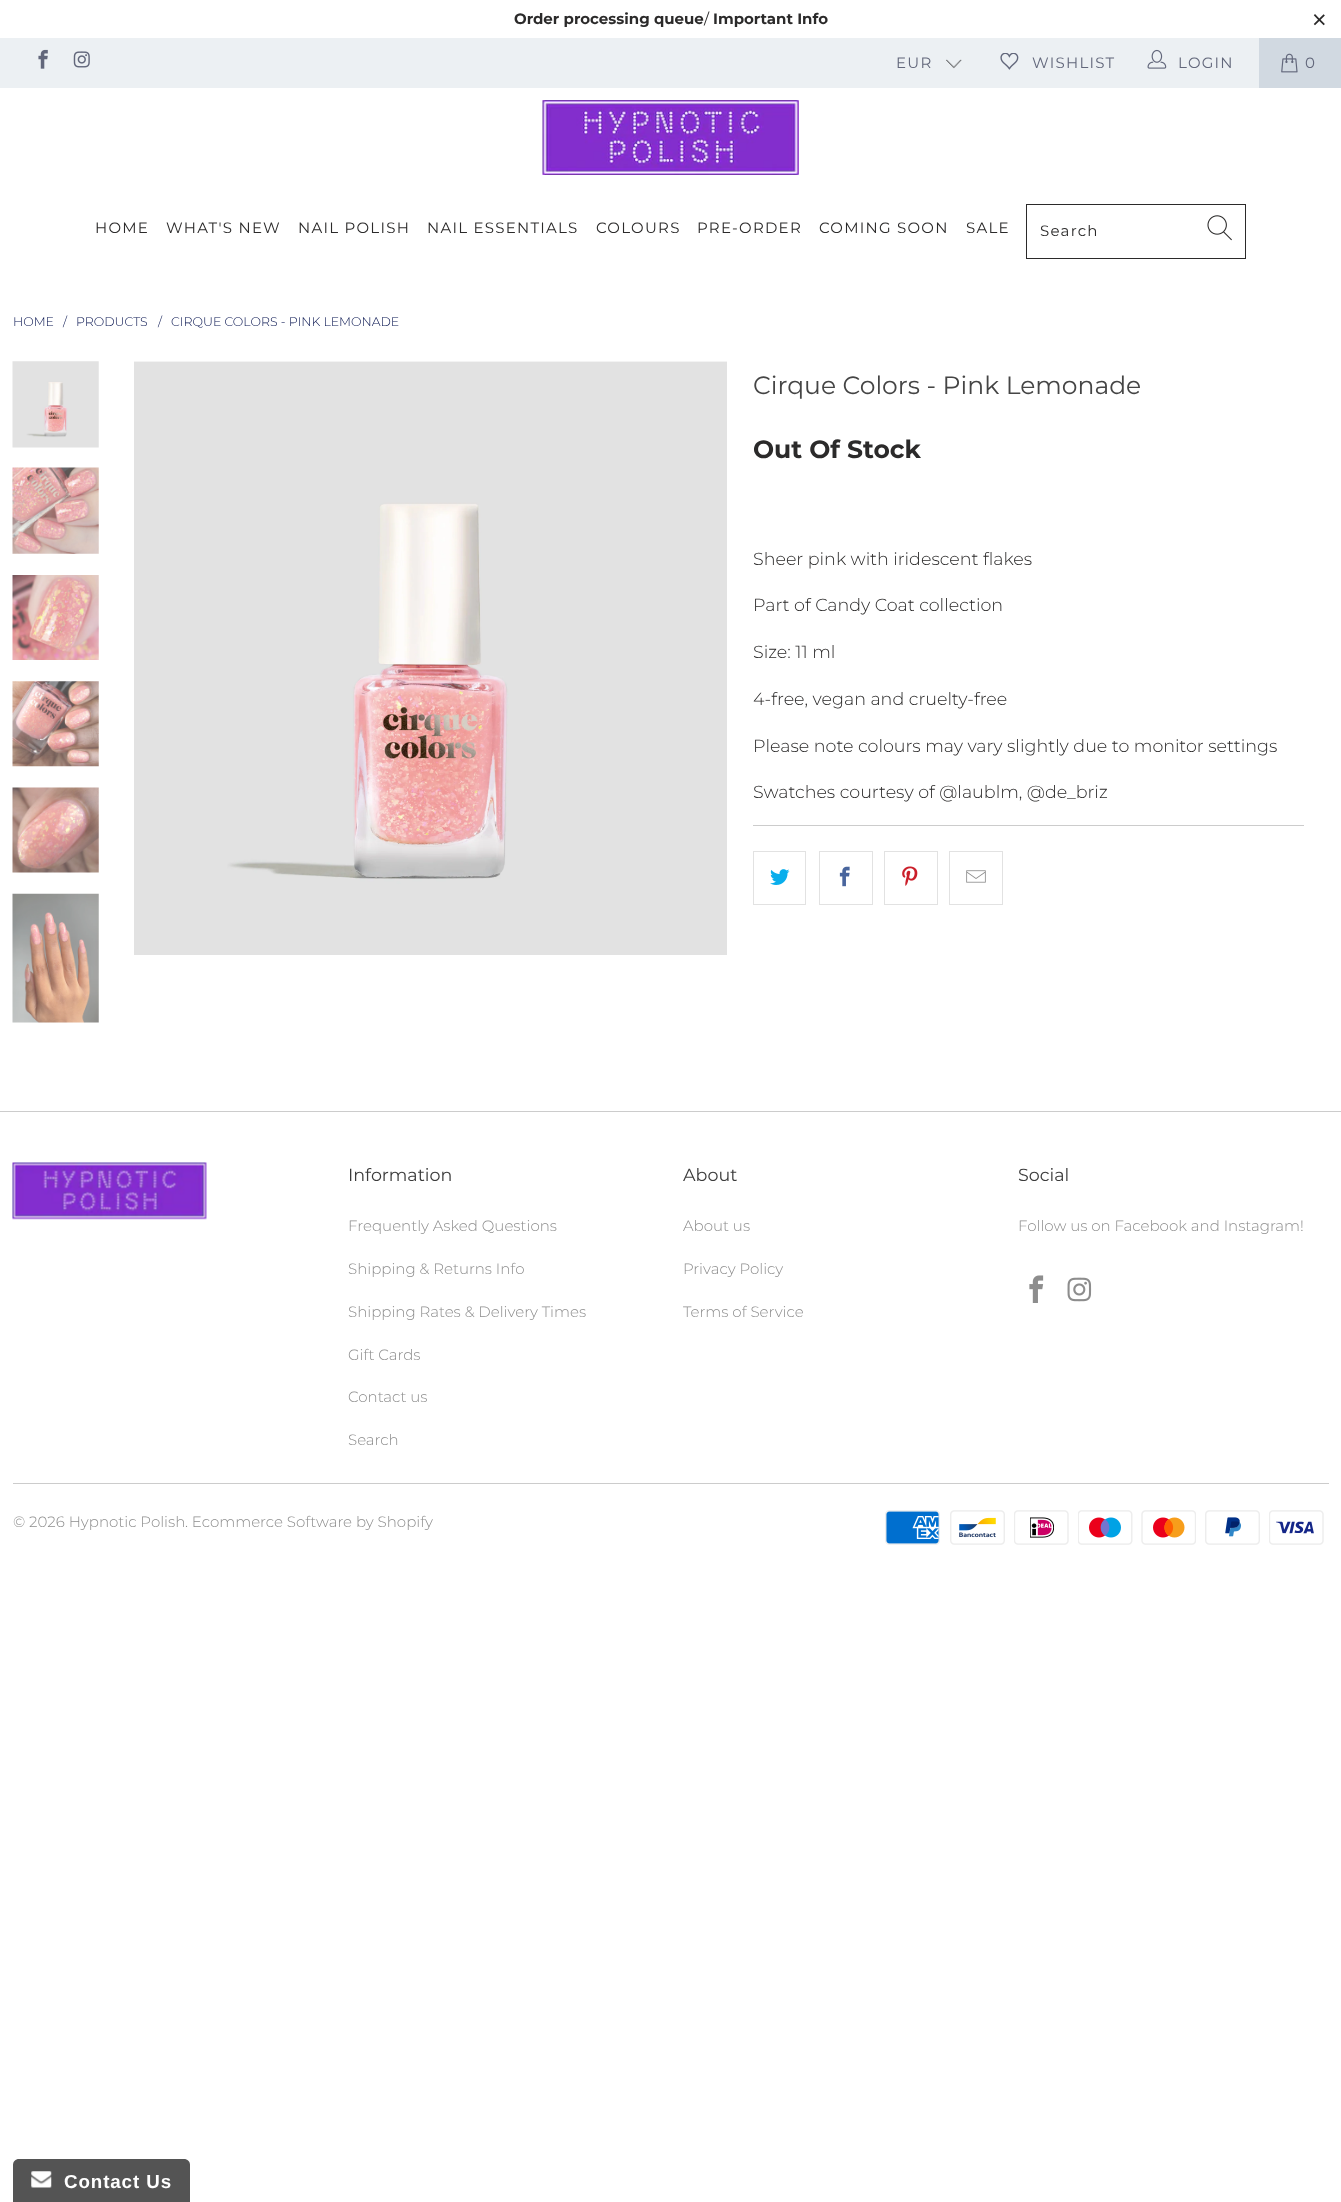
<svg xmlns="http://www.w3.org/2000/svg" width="1341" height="2202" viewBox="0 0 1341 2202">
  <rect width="100%" height="100%" fill="rgb(255,255,255)"/>
  <text x="514" y="24" font-family="Montserrat" font-size="15" font-weight="bold" fill="rgb(43,42,42)">Order processing queue</text>
  <text x="704" y="24" font-family="Montserrat" font-size="15" fill="rgb(43,42,42)">/</text>
  <text x="713" y="24" font-family="Montserrat" font-size="15" font-weight="bold" fill="rgb(43,42,42)">Important Info</text>
  <text x="1312" y="28" font-family="Liberation Sans" font-size="25" fill="rgb(43,42,42)">×</text>
  <rect x="0" y="38" width="1259" height="50" fill="rgb(236,240,243)"/>
  <image x="38" y="49" width="10" height="20" href="pic1.png"/>
  <image x="73" y="51" width="17" height="17" href="pic2.png"/>
  <image x="946" y="59" width="16" height="10" href="pic3.png"/>
  <text x="896" y="68" font-family="Montserrat" font-size="15" letter-spacing="1.25" fill="rgb(98,103,123)">EUR</text>
  <image x="1000" y="53" width="19" height="17" href="pic4.png"/>
  <text x="1032" y="68" font-family="Montserrat" font-size="15" letter-spacing="1.25" fill="rgb(98,103,123)">WISHLIST</text>
  <image x="1147" y="49" width="20" height="20" href="pic5.png"/>
  <text x="1178" y="68" font-family="Montserrat" font-size="15" letter-spacing="1.25" fill="rgb(98,103,123)">LOGIN</text>
  <rect x="1259" y="38" width="82" height="50" fill="rgb(209,217,225)"/>
  <image x="1281" y="53" width="17" height="20" href="pic6.png"/>
  <text x="1305" y="68" font-family="Montserrat" font-size="15" letter-spacing="1.25" fill="rgb(98,103,123)">0</text>
  <image x="542" y="100" width="257" height="75" href="pic7.png"/>
  <g font-family="Montserrat" font-size="15" letter-spacing="1.25" fill="rgb(43,42,42)">
    <text x="95" y="233">HOME</text>
    <text x="166" y="233">WHAT'S NEW</text>
    <text x="298" y="233">NAIL POLISH</text>
    <text x="427" y="233">NAIL ESSENTIALS</text>
    <text x="596" y="233">COLOURS</text>
    <text x="697" y="233">PRE-ORDER</text>
    <text x="819" y="233">COMING SOON</text>
    <text x="966" y="233">SALE</text>
  </g>
  <rect x="1026.5" y="204.5" width="219" height="54" fill="none" stroke="rgb(43,42,42)"/>
  <text x="1040" y="236" font-family="Montserrat" font-size="15" letter-spacing="1.25" fill="rgb(43,42,42)">Search</text>
  <image x="1207" y="215" width="25" height="26" href="pic8.png"/>
  <g font-family="Montserrat" font-size="12.5" font-weight="300" fill="rgb(2,15,76)">
    <text x="13" y="326">HOME</text>
    <text x="63" y="326">/</text>
    <text x="76" y="326">PRODUCTS</text>
    <text x="158" y="326">/</text>
    <text x="171" y="326">CIRQUE COLORS - PINK LEMONADE</text>
  </g>
  <image x="12" y="361" width="87" height="87" href="pic9.png"/>
  <image x="12" y="467" width="87" height="87" href="pic10.png"/>
  <image x="12" y="575" width="87" height="85" href="pic11.png"/>
  <image x="12" y="681" width="87" height="86" href="pic12.png"/>
  <image x="12" y="787" width="87" height="86" href="pic13.png"/>
  <image x="12" y="893" width="87" height="130" href="pic14.png"/>
  <image x="134" y="361" width="593" height="594" href="pic15.png"/>
  <text x="753" y="394" font-family="Montserrat" font-size="25" fill="rgb(69,69,69)">Cirque Colors - Pink Lemonade</text>
  <text x="753" y="458" font-family="Montserrat" font-size="25" font-weight="bold" fill="rgb(43,42,42)">Out Of Stock</text>
  <g font-family="Montserrat" font-size="17.5" font-weight="300" fill="rgb(43,42,42)">
    <text x="753" y="565">Sheer pink with iridescent flakes</text>
    <text x="753" y="611">Part of Candy Coat collection</text>
    <text x="753" y="658">Size: 11 ml</text>
    <text x="753" y="705">4-free, vegan and cruelty-free</text>
    <text x="753" y="752">Please note colours may vary slightly due to monitor settings</text>
    <text x="753" y="798">Swatches courtesy of @laublm, @de_briz</text>
  </g>
  <rect x="753" y="825" width="551" height="1" fill="rgb(204,204,204)"/>
  <rect x="753.5" y="851.5" width="52" height="53" fill="none" stroke="rgb(226,226,226)"/>
  <image x="770" y="869" width="20" height="16" href="pic16.png"/>
  <rect x="819.5" y="851.5" width="53" height="53" fill="none" stroke="rgb(226,226,226)"/>
  <image x="839" y="866" width="11" height="21" href="pic17.png"/>
  <rect x="884.5" y="851.5" width="53" height="53" fill="none" stroke="rgb(226,226,226)"/>
  <image x="902" y="866" width="16" height="20" href="pic18.png"/>
  <rect x="949.5" y="851.5" width="53" height="53" fill="none" stroke="rgb(226,226,226)"/>
  <image x="966" y="870" width="20" height="13" href="pic19.png"/>
  <rect x="0" y="1111" width="1341" height="1" fill="rgb(204,204,204)"/>
  <image x="12" y="1162" width="195" height="58" href="pic20.png"/>
  <text x="348" y="1181" font-family="Montserrat" font-size="17.5" fill="rgb(59,59,59)">Information</text>
  <g font-family="Montserrat" font-size="15" font-weight="300" fill="rgb(141,141,141)">
    <text x="348" y="1231">Frequently Asked Questions</text>
    <text x="348" y="1274">Shipping &amp; Returns Info</text>
    <text x="348" y="1317">Shipping Rates &amp; Delivery Times</text>
    <text x="348" y="1360">Gift Cards</text>
    <text x="348" y="1402">Contact us</text>
    <text x="348" y="1445">Search</text>
  </g>
  <text x="683" y="1181" font-family="Montserrat" font-size="17.5" fill="rgb(59,59,59)">About</text>
  <g font-family="Montserrat" font-size="15" font-weight="300" fill="rgb(141,141,141)">
    <text x="683" y="1231">About us</text>
    <text x="683" y="1274">Privacy Policy</text>
    <text x="683" y="1317">Terms of Service</text>
  </g>
  <text x="1018" y="1181" font-family="Montserrat" font-size="17.5" fill="rgb(59,59,59)">Social</text>
  <text x="1018" y="1231" font-family="Montserrat" font-size="15" font-weight="300" fill="rgb(141,141,141)">Follow us on Facebook and Instagram!</text>
  <image x="1029" y="1275" width="15" height="28" href="pic21.png"/>
  <image x="1067" y="1277" width="25" height="25" href="pic22.png"/>
  <rect x="13" y="1483" width="1316" height="1" fill="rgb(204,204,204)"/>
  <g font-family="Montserrat" font-size="15" font-weight="300" fill="rgb(141,141,141)">
    <text x="13" y="1527">© 2026 Hypnotic Polish</text>
    <text x="185" y="1527">. Ecommerce Software by Shopify</text>
  </g>
  <image x="885" y="1510" width="55" height="35" href="pic23.png"/>
  <image x="950" y="1510" width="55" height="35" href="pic24.png"/>
  <image x="1014" y="1510" width="55" height="35" href="pic25.png"/>
  <image x="1078" y="1510" width="55" height="35" href="pic26.png"/>
  <image x="1141" y="1510" width="55" height="35" href="pic27.png"/>
  <image x="1205" y="1510" width="55" height="35" href="pic28.png"/>
  <image x="1269" y="1510" width="55" height="35" href="pic29.png"/>
  <path d="M19 2159H184C187.5 2159 190 2161.5 190 2165V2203H13V2165C13 2161.5 15.5 2159 19 2159Z" fill="rgb(84,84,84)"/>
  <image x="31" y="2171" width="21" height="17" href="pic30.png"/>
  <text x="64" y="2188" font-family="Liberation Sans" font-size="18.75" font-weight="bold" letter-spacing="0.9" fill="rgb(255,255,255)">Contact Us</text>
</svg>
